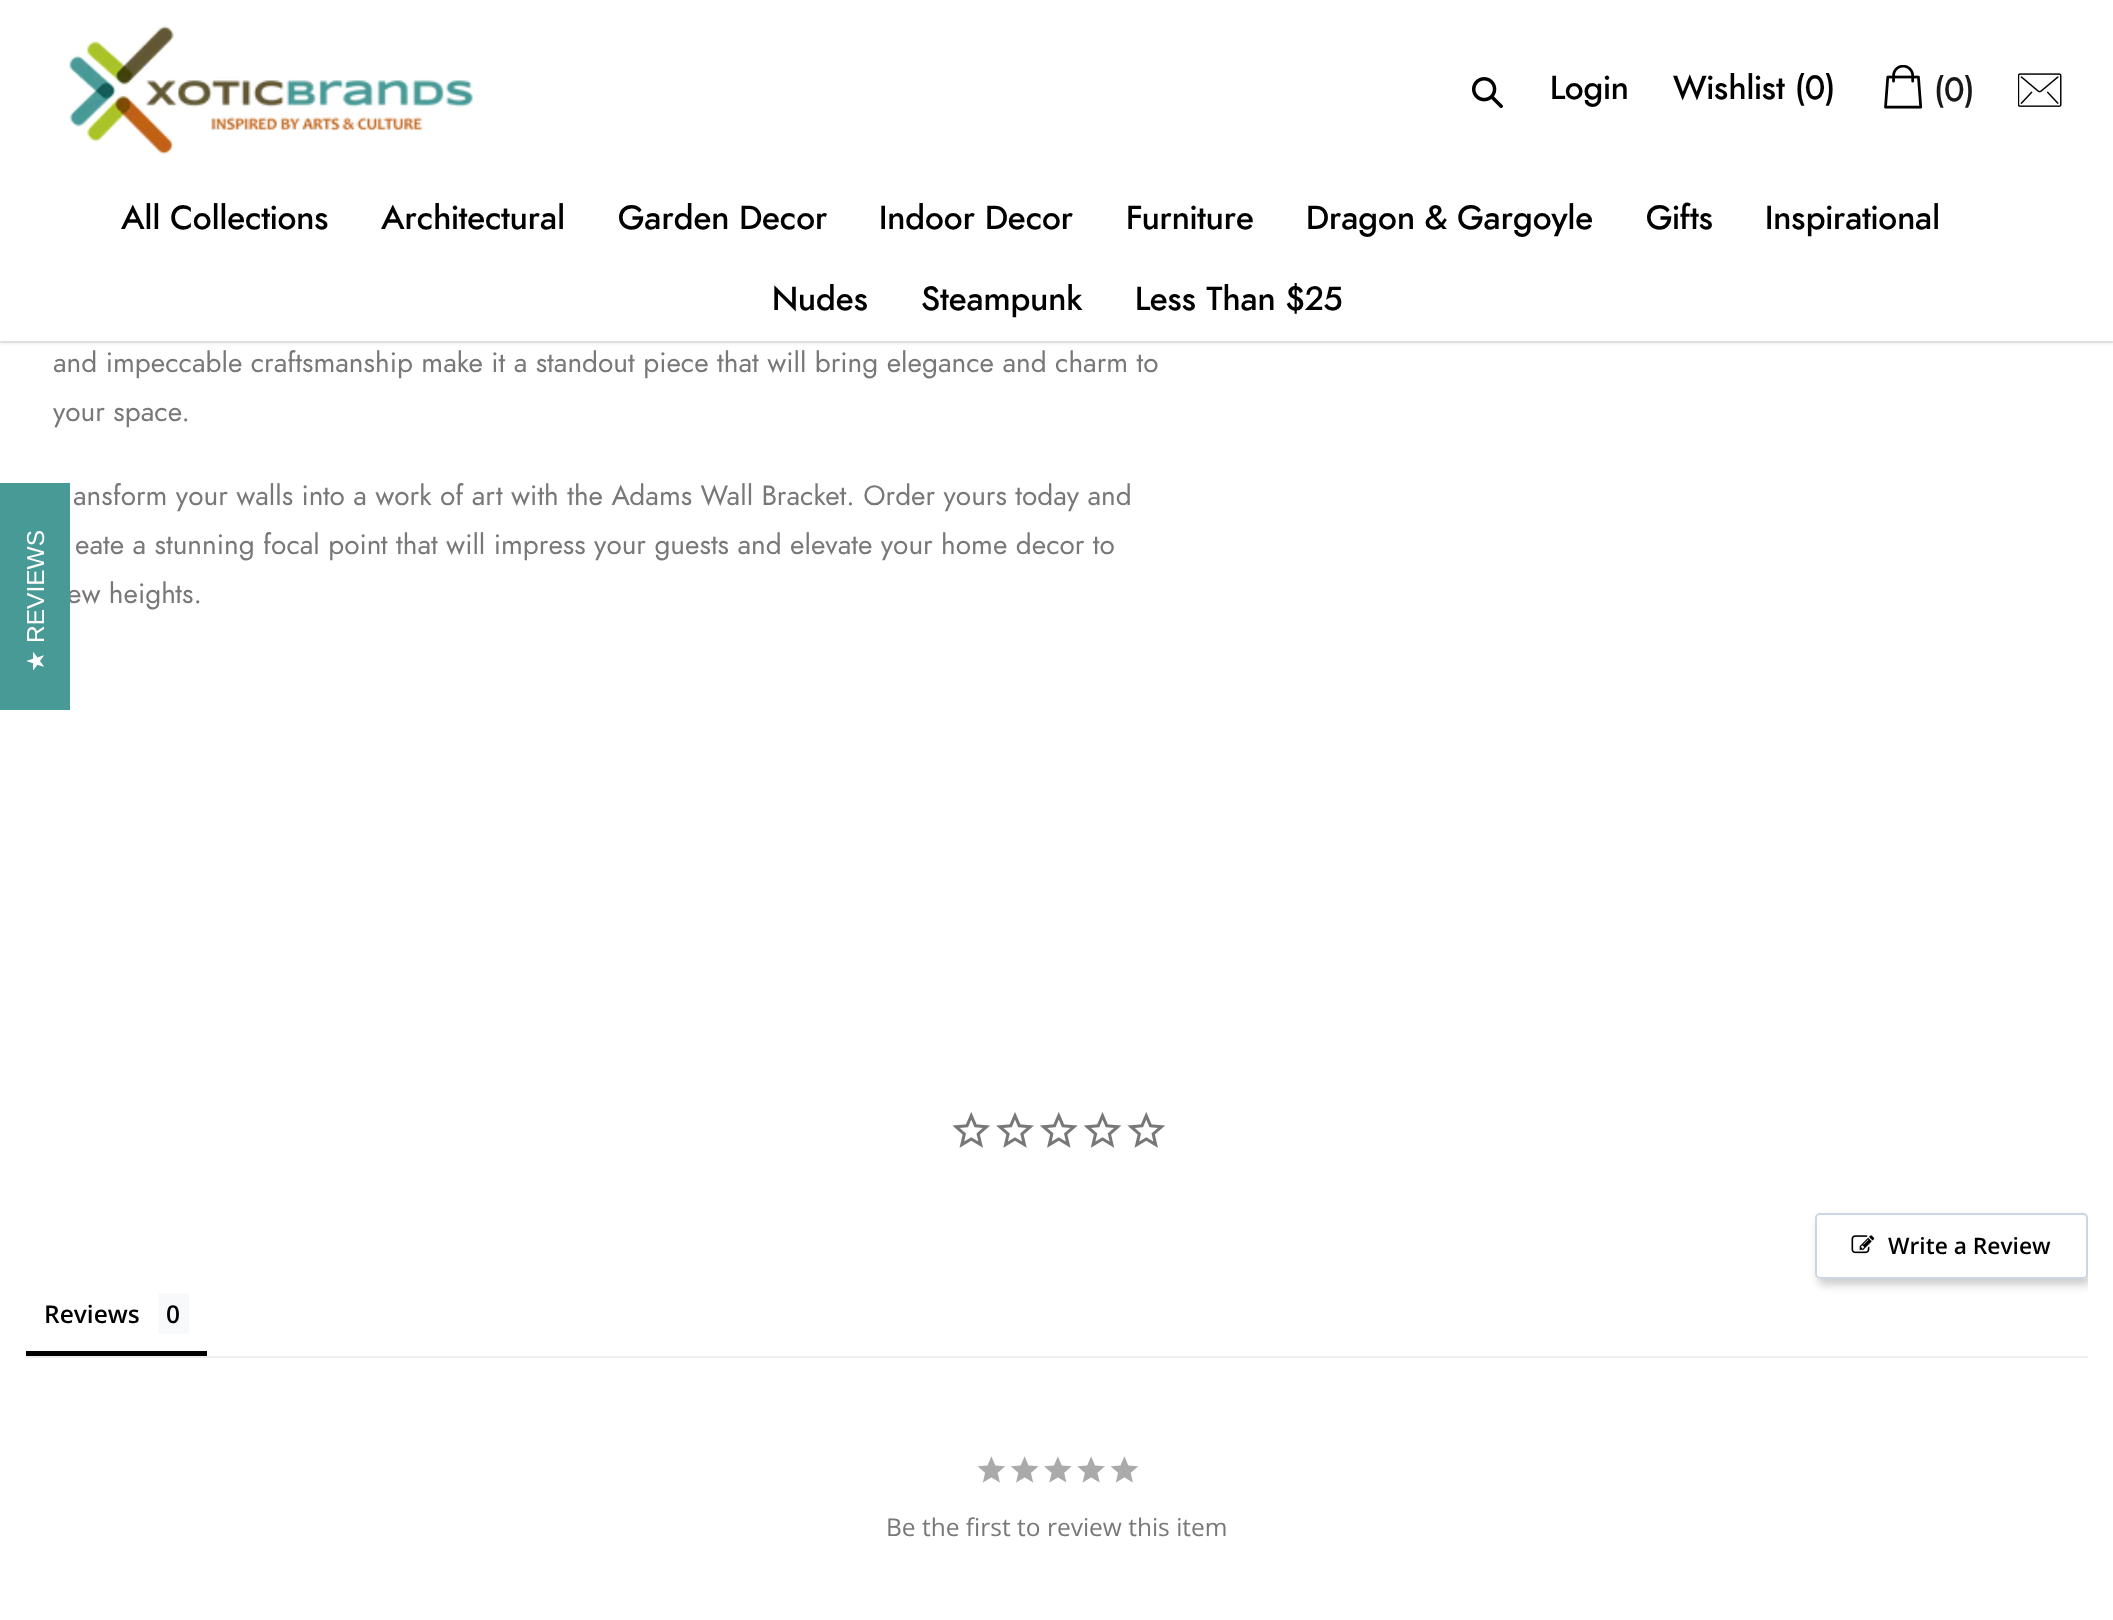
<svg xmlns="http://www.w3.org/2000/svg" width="2113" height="1620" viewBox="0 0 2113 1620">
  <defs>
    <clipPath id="clip1"><rect x="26" y="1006" width="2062" height="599"/></clipPath>
    <clipPath id="clip2"><path d="M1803 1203H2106V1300H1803ZM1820 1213H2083C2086 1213 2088 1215 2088 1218V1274C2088 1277 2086 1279 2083 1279H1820C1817 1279 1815 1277 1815 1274V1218C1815 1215 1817 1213 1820 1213Z" clip-rule="evenodd"/></clipPath>
  </defs>
  <rect width="100%" height="100%" fill="rgb(255,255,255)"/>
  <rect x="0" y="2" width="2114" height="341" fill="rgba(0,0,0,0.1)" filter="blur(2px)"/>
  <rect x="-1" y="-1" width="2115" height="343" fill="none" stroke="rgba(0,0,0,0.06)" stroke-width="2"/>
  <rect x="0" y="0" width="2113" height="341" fill="rgb(255,255,255)"/>
  <image x="69" y="26" width="404" height="129" href="pic1.png"/>
  <image x="1472" y="77" width="31" height="31" href="pic2.png"/>
  <g font-family="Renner" font-size="33.25" font-weight="500" fill="rgb(0,0,0)">
    <text x="1550" y="99">Login</text>
    <text x="1673" y="99">Wishlist (0)</text>
  </g>
  <image x="1884" y="65" width="39" height="44" href="pic3.png"/>
  <text x="1934" y="101" font-family="Renner" font-size="33.25" font-weight="500" fill="rgb(25,25,25)">(0)</text>
  <image x="2018" y="73" width="44" height="34" href="pic4.png"/>
  <g font-family="Renner" font-size="33.25" font-weight="500" fill="rgb(0,0,0)">
    <text x="121" y="229">All Collections</text>
    <text x="381" y="229">Architectural</text>
    <text x="618" y="229">Garden Decor</text>
    <text x="879" y="229">Indoor Decor</text>
    <text x="1126" y="229">Furniture</text>
    <text x="1306" y="229">Dragon &amp; Gargoyle</text>
    <text x="1646" y="229">Gifts</text>
    <text x="1765" y="229">Inspirational</text>
    <text x="772" y="310">Nudes</text>
    <text x="921" y="310">Steampunk</text>
    <text x="1135" y="310">Less Than $25</text>
  </g>
  <text x="67" y="603" font-family="Renner" font-size="28" fill="rgb(120,120,120)">ew heights.</text>
  <rect x="0" y="483" width="70" height="227" fill="rgb(72,154,150)"/>
  <text x="44" y="643" transform="rotate(-90 44 643)" font-family="Liberation Sans" font-size="24.5" fill="rgb(255,255,255)">REVIEWS</text>
  <text x="44" y="672" transform="rotate(-90 44 672)" font-family="DejaVu Sans" font-size="24.5" fill="rgb(255,255,255)">★</text>
  <g font-family="Renner" font-size="28" fill="rgb(120,120,120)">
    <text>
      <tspan x="53" y="372">and impeccable craftsmanship make it a standout piece that will bring elegance and charm to</tspan>
      <tspan x="53" y="421">your space.</tspan>
    </text>
    <text x="73" y="505">ansform your walls into a work of art with the Adams Wall Bracket. Order yours today and</text>
    <text x="75" y="554">eate a stunning focal point that will impress your guests and elevate your home decor to</text>
  </g>
  <image x="952" y="1112" width="38" height="36" href="pic5.png"/>
  <image x="996" y="1112" width="38" height="36" href="pic6.png"/>
  <image x="1040" y="1112" width="38" height="36" href="pic7.png"/>
  <image x="1083" y="1112" width="39" height="36" href="pic8.png"/>
  <image x="1127" y="1112" width="38" height="36" href="pic5.png"/>
  <g clip-path="url(#clip1)">
    <g clip-path="url(#clip2)">
      <rect x="1818" y="1218" width="273" height="67" rx="5" fill="rgba(136,136,136,0.42)" filter="blur(4.5px)"/>
    </g>
  </g>
  <rect x="1816" y="1214" width="271" height="64" rx="4" fill="none" stroke="rgb(204,214,224)" stroke-width="2"/>
  <image x="1851" y="1235" width="24" height="19" href="pic9.png"/>
  <text x="1888" y="1254" font-family="Open Sans" font-size="22.75" font-weight="600" fill="rgb(0,0,0)">Write a Review</text>
  <rect x="26" y="1356" width="2062" height="2" fill="rgb(238,238,238)"/>
  <rect x="26" y="1351" width="181" height="5" fill="rgb(0,0,0)"/>
  <text x="44" y="1323" font-family="Open Sans" font-size="24.5" font-weight="600" fill="rgb(0,0,0)">Reviews</text>
  <rect x="158" y="1293" width="31" height="41" fill="rgb(248,249,250)"/>
  <text x="166" y="1323" font-family="Open Sans" font-size="24.5" font-weight="600" fill="rgb(0,0,0)">0</text>
  <image x="977" y="1456" width="161" height="27" href="pic10.png"/>
  <text x="886" y="1536" font-family="Open Sans" font-size="24.5" fill="rgb(120,120,120)">Be the first to review this item</text>
</svg>
